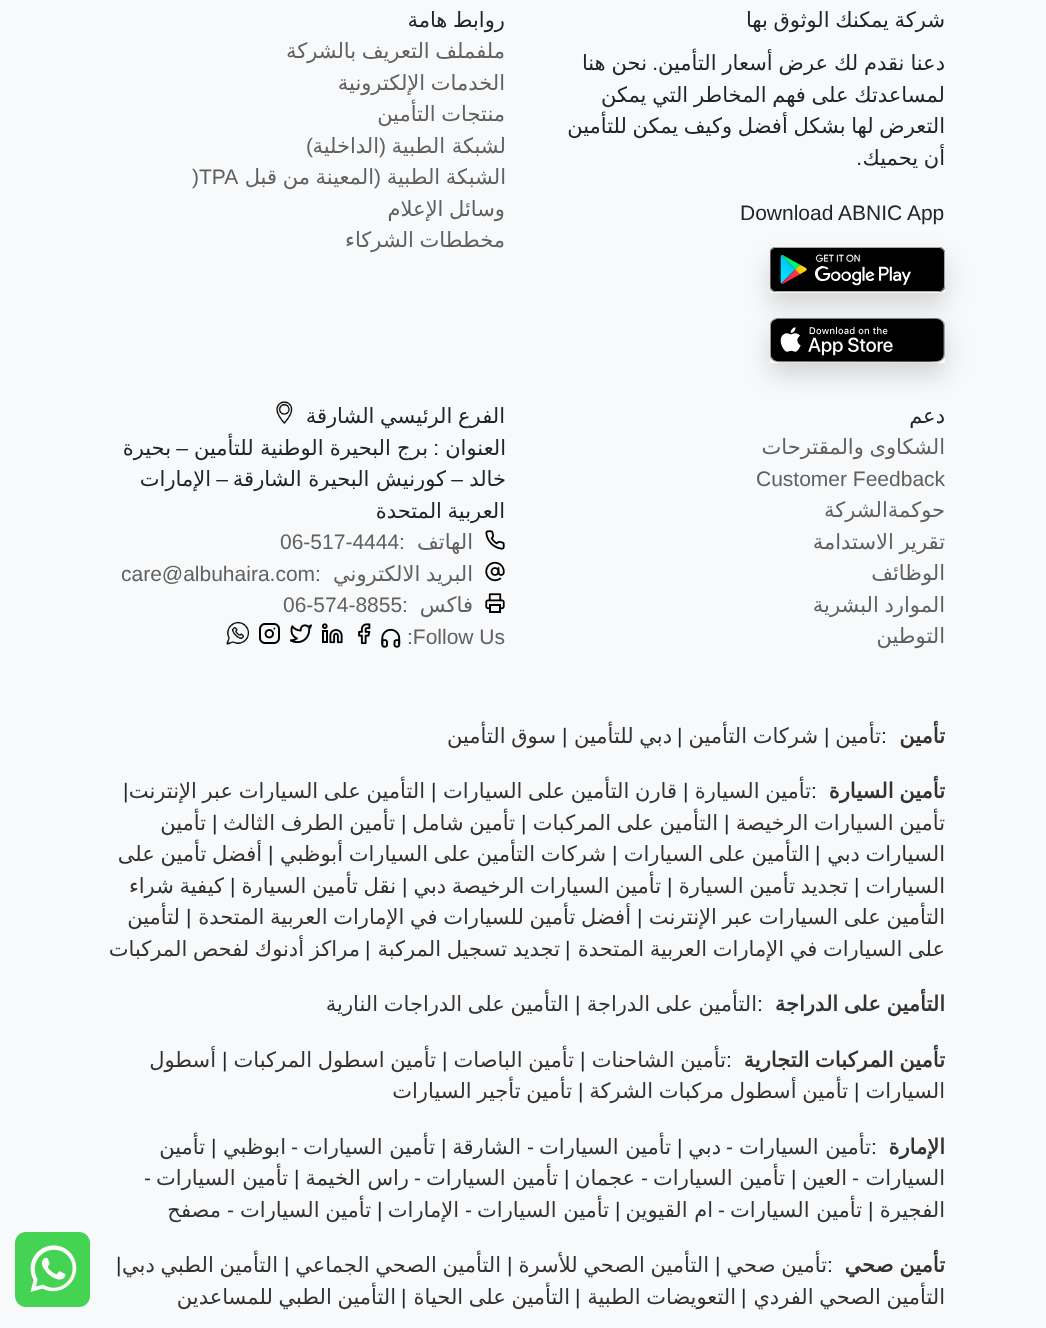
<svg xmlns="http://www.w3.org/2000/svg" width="1046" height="1328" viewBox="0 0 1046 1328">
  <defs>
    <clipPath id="clip1"><path d="M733 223H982V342H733ZM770 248H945V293H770Z" clip-rule="evenodd"/></clipPath>
    <clipPath id="clip2"><path d="M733 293H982V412H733ZM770 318H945V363H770Z" clip-rule="evenodd"/></clipPath>
  </defs>
  <rect width="100%" height="100%" fill="rgb(248,249,250)"/>
  <g font-family="DejaVu Sans" font-size="21" direction="rtl" fill="rgb(33,37,41)">
    <text x="945" y="27" word-spacing="-1">شركة يمكنك الوثوق بها</text>
    <text x="945" y="70" word-spacing="-0.75">دعنا نقدم لك عرض أسعار التأمين</text>
  </g>
  <text x="658" y="70" font-family="Liberation Sans" font-size="21" direction="rtl" fill="rgb(33,37,41)">.</text>
  <g font-family="DejaVu Sans" font-size="21" direction="rtl" fill="rgb(33,37,41)">
    <text x="647" y="70" word-spacing="-0.75">نحن هنا</text>
    <text>
      <tspan x="945" y="102" word-spacing="-1">لمساعدتك على فهم المخاطر التي يمكن</tspan>
      <tspan x="945" y="133" word-spacing="-1">التعرض لها بشكل أفضل وكيف يمكن للتأمين</tspan>
      <tspan x="945" y="165" word-spacing="-1">أن يحميك</tspan>
    </text>
  </g>
  <text x="862" y="165" font-family="Liberation Sans" font-size="21" direction="rtl" fill="rgb(33,37,41)">.</text>
  <text x="740" y="220" font-family="Liberation Sans" font-size="21" fill="rgb(33,37,41)">Download ABNIC App</text>
  <g clip-path="url(#clip1)">
    <rect x="770" y="260" width="175" height="45" fill="rgba(0,0,0,0.15)" filter="blur(12px)"/>
  </g>
  <image x="770" y="247" width="175" height="45" href="pic1.png"/>
  <g clip-path="url(#clip2)">
    <rect x="770" y="330" width="175" height="45" fill="rgba(0,0,0,0.15)" filter="blur(12px)"/>
  </g>
  <image x="770" y="318" width="175" height="45" href="pic2.png"/>
  <text x="505" y="27" word-spacing="-1" font-family="DejaVu Sans" font-size="21" direction="rtl" fill="rgb(33,37,41)">روابط هامة</text>
  <g font-family="DejaVu Sans" font-size="21" direction="rtl" fill="rgb(97,97,97)">
    <text>
      <tspan x="505" y="58" word-spacing="-1">ملفملف التعريف بالشركة</tspan>
      <tspan x="505" y="90" word-spacing="-1">الخدمات الإلكترونية</tspan>
      <tspan x="505" y="121" word-spacing="-1">منتجات التأمين</tspan>
    </text>
    <text x="506" y="153">لشبكة الطبية</text>
  </g>
  <text x="386" y="153" font-family="Liberation Sans" font-size="21" direction="rtl" fill="rgb(97,97,97)">(</text>
  <text x="379" y="153" font-family="DejaVu Sans" font-size="21" direction="rtl" fill="rgb(97,97,97)">الداخلية</text>
  <text x="313" y="153" font-family="Liberation Sans" font-size="21" direction="rtl" fill="rgb(97,97,97)">)</text>
  <text x="506" y="184" word-spacing="-1" font-family="DejaVu Sans" font-size="21" direction="rtl" fill="rgb(97,97,97)">الشبكة الطبية</text>
  <text x="381" y="184" font-family="Liberation Sans" font-size="21" direction="rtl" fill="rgb(97,97,97)">(</text>
  <text x="374" y="184" word-spacing="-1" font-family="DejaVu Sans" font-size="21" direction="rtl" fill="rgb(97,97,97)">المعينة من قبل</text>
  <text x="192" y="184" font-family="Liberation Sans" font-size="21" fill="rgb(97,97,97)">)TPA</text>
  <g font-family="DejaVu Sans" font-size="21" direction="rtl" fill="rgb(97,97,97)">
    <text>
      <tspan x="505" y="216" word-spacing="-1">وسائل الإعلام</tspan>
      <tspan x="505" y="247" word-spacing="-1">مخططات الشركاء</tspan>
    </text>
  </g>
  <text x="945" y="423" font-family="DejaVu Sans" font-size="21" direction="rtl" fill="rgb(33,37,41)">دعم</text>
  <text x="945" y="454" word-spacing="-1" font-family="DejaVu Sans" font-size="21" direction="rtl" fill="rgb(97,97,97)">الشكاوى والمقترحات</text>
  <text x="756" y="486" font-family="Liberation Sans" font-size="21" fill="rgb(97,97,97)">Customer Feedback</text>
  <g font-family="DejaVu Sans" font-size="21" direction="rtl" fill="rgb(97,97,97)">
    <text>
      <tspan x="945" y="517">حوكمةالشركة</tspan>
      <tspan x="945" y="549" word-spacing="-1">تقرير الاستدامة</tspan>
      <tspan x="945" y="580">الوظائف</tspan>
      <tspan x="945" y="612" word-spacing="-1">الموارد البشرية</tspan>
      <tspan x="945" y="643">التوطين</tspan>
    </text>
  </g>
  <text x="505" y="423" word-spacing="-1" font-family="DejaVu Sans" font-size="21" direction="rtl" fill="rgb(33,37,41)">الفرع الرئيسي الشارقة</text>
  <image x="276" y="401" width="17" height="23" href="pic3.png"/>
  <text x="506" y="455" font-family="DejaVu Sans" font-size="21" direction="rtl" fill="rgb(33,37,41)">العنوان</text>
  <text x="439" y="455" font-family="Liberation Sans" font-size="21" direction="rtl" fill="rgb(33,37,41)">:</text>
  <text x="428" y="455" word-spacing="-0.5" font-family="DejaVu Sans" font-size="21" direction="rtl" fill="rgb(33,37,41)">برج البحيرة الوطنية للتأمين</text>
  <text x="188" y="455" font-family="Liberation Sans" font-size="21" direction="rtl" fill="rgb(33,37,41)">–</text>
  <g font-family="DejaVu Sans" font-size="21" direction="rtl" fill="rgb(33,37,41)">
    <text x="171" y="455">بحيرة</text>
    <text x="506" y="486">خالد</text>
  </g>
  <text x="463" y="486" font-family="Liberation Sans" font-size="21" direction="rtl" fill="rgb(33,37,41)">–</text>
  <text x="446" y="486" font-family="DejaVu Sans" font-size="21" direction="rtl" fill="rgb(33,37,41)">كورنيش البحيرة الشارقة</text>
  <text x="228" y="486" font-family="Liberation Sans" font-size="21" direction="rtl" fill="rgb(33,37,41)">–</text>
  <g font-family="DejaVu Sans" font-size="21" direction="rtl" fill="rgb(33,37,41)">
    <text x="211" y="486">الإمارات</text>
    <text x="505" y="518" word-spacing="-1">العربية المتحدة</text>
  </g>
  <image x="485" y="530" width="20" height="20" href="pic4.png"/>
  <text x="473" y="549" font-family="DejaVu Sans" font-size="21" direction="rtl" fill="rgb(97,97,97)">الهاتف</text>
  <g font-family="Liberation Sans" font-size="21" fill="rgb(97,97,97)">
    <text x="399" y="549">:</text>
    <text x="280" y="549">06-517-4444</text>
  </g>
  <image x="485" y="561" width="20" height="21" href="pic5.png"/>
  <text x="473" y="581" word-spacing="-1" font-family="DejaVu Sans" font-size="21" direction="rtl" fill="rgb(97,97,97)">البريد الالكتروني</text>
  <g font-family="Liberation Sans" font-size="21" fill="rgb(97,97,97)">
    <text x="315" y="581">:</text>
    <text x="121" y="581">care@albuhaira.com</text>
  </g>
  <image x="485" y="593" width="20" height="20" href="pic6.png"/>
  <text x="473" y="612" font-family="DejaVu Sans" font-size="21" direction="rtl" fill="rgb(97,97,97)">فاكس</text>
  <g font-family="Liberation Sans" font-size="21" fill="rgb(97,97,97)">
    <text x="402" y="612">:</text>
    <text x="283" y="612">06-574-8855</text>
    <text x="407" y="644">:Follow Us</text>
  </g>
  <image x="381" y="628" width="20" height="20" href="pic7.png"/>
  <image x="358" y="623" width="13" height="22" href="pic8.png"/>
  <image x="322" y="623" width="21" height="21" href="pic9.png"/>
  <image x="290" y="624" width="22" height="20" href="pic10.png"/>
  <image x="259" y="623" width="21" height="21" href="pic11.png"/>
  <image x="226" y="622" width="23" height="23" href="pic12.png"/>
  <text x="945" y="743" font-family="DejaVu Sans" font-size="21" font-weight="bold" direction="rtl" fill="rgb(51,51,51)">تأمين</text>
  <text x="881" y="743" font-family="Liberation Sans" font-size="21" fill="rgb(33,37,41)">:</text>
  <text x="881" y="743" font-family="DejaVu Sans" font-size="21" direction="rtl" fill="rgb(51,51,51)">تأمين</text>
  <text x="824" y="743" font-family="Liberation Sans" font-size="21" fill="rgb(33,37,41)">|</text>
  <text x="818" y="743" word-spacing="-1" font-family="DejaVu Sans" font-size="21" direction="rtl" fill="rgb(51,51,51)">شركات التأمين</text>
  <text x="677" y="743" font-family="Liberation Sans" font-size="21" fill="rgb(33,37,41)">|</text>
  <text x="672" y="743" word-spacing="-1" font-family="DejaVu Sans" font-size="21" direction="rtl" fill="rgb(51,51,51)">دبي للتأمين</text>
  <text x="562" y="743" font-family="Liberation Sans" font-size="21" fill="rgb(33,37,41)">|</text>
  <text x="556" y="743" word-spacing="-1" font-family="DejaVu Sans" font-size="21" direction="rtl" fill="rgb(51,51,51)">سوق التأمين</text>
  <text x="945" y="798" word-spacing="-1" font-family="DejaVu Sans" font-size="21" font-weight="bold" direction="rtl" fill="rgb(51,51,51)">تأمين السيارة</text>
  <text x="811" y="798" font-family="Liberation Sans" font-size="21" fill="rgb(33,37,41)">:</text>
  <text x="811" y="798" word-spacing="-1" font-family="DejaVu Sans" font-size="21" direction="rtl" fill="rgb(51,51,51)">تأمين السيارة</text>
  <text x="683" y="798" font-family="Liberation Sans" font-size="21" fill="rgb(33,37,41)">|</text>
  <text x="677" y="798" word-spacing="-1" font-family="DejaVu Sans" font-size="21" direction="rtl" fill="rgb(51,51,51)">قارن التأمين على السيارات</text>
  <text x="431" y="798" font-family="Liberation Sans" font-size="21" fill="rgb(33,37,41)">|</text>
  <text x="425" y="798" word-spacing="-1" font-family="DejaVu Sans" font-size="21" direction="rtl" fill="rgb(51,51,51)">التأمين على السيارات عبر الإنترنت</text>
  <text x="123" y="798" font-family="Liberation Sans" font-size="21" fill="rgb(33,37,41)">|</text>
  <text x="945" y="830" word-spacing="-1" font-family="DejaVu Sans" font-size="21" direction="rtl" fill="rgb(51,51,51)">تأمين السيارات الرخيصة</text>
  <text x="724" y="830" font-family="Liberation Sans" font-size="21" fill="rgb(33,37,41)">|</text>
  <text x="718" y="830" word-spacing="-1" font-family="DejaVu Sans" font-size="21" direction="rtl" fill="rgb(51,51,51)">التأمين على المركبات</text>
  <text x="521" y="830" font-family="Liberation Sans" font-size="21" fill="rgb(33,37,41)">|</text>
  <text x="515" y="830" word-spacing="-1" font-family="DejaVu Sans" font-size="21" direction="rtl" fill="rgb(51,51,51)">تأمين شامل</text>
  <text x="401" y="830" font-family="Liberation Sans" font-size="21" fill="rgb(33,37,41)">|</text>
  <text x="395" y="830" word-spacing="-1" font-family="DejaVu Sans" font-size="21" direction="rtl" fill="rgb(51,51,51)">تأمين الطرف الثالث</text>
  <text x="212" y="830" font-family="Liberation Sans" font-size="21" fill="rgb(33,37,41)">|</text>
  <g font-family="DejaVu Sans" font-size="21" direction="rtl" fill="rgb(51,51,51)">
    <text x="206" y="830">تأمين</text>
    <text x="945" y="861" word-spacing="-1">السيارات دبي</text>
  </g>
  <text x="815" y="861" font-family="Liberation Sans" font-size="21" fill="rgb(33,37,41)">|</text>
  <text x="810" y="861" word-spacing="-1" font-family="DejaVu Sans" font-size="21" direction="rtl" fill="rgb(51,51,51)">التأمين على السيارات</text>
  <text x="612" y="861" font-family="Liberation Sans" font-size="21" fill="rgb(33,37,41)">|</text>
  <text x="606" y="861" word-spacing="-1" font-family="DejaVu Sans" font-size="21" direction="rtl" fill="rgb(51,51,51)">شركات التأمين على السيارات أبوظبي</text>
  <text x="268" y="861" font-family="Liberation Sans" font-size="21" fill="rgb(33,37,41)">|</text>
  <g font-family="DejaVu Sans" font-size="21" direction="rtl" fill="rgb(51,51,51)">
    <text x="262" y="861" word-spacing="-1">أفضل تأمين على</text>
    <text x="945" y="893">السيارات</text>
  </g>
  <text x="854" y="893" font-family="Liberation Sans" font-size="21" fill="rgb(33,37,41)">|</text>
  <text x="848" y="893" word-spacing="-1" font-family="DejaVu Sans" font-size="21" direction="rtl" fill="rgb(51,51,51)">تجديد تأمين السيارة</text>
  <text x="667" y="893" font-family="Liberation Sans" font-size="21" fill="rgb(33,37,41)">|</text>
  <text x="661" y="893" word-spacing="-1" font-family="DejaVu Sans" font-size="21" direction="rtl" fill="rgb(51,51,51)">تأمين السيارات الرخيصة دبي</text>
  <text x="402" y="893" font-family="Liberation Sans" font-size="21" fill="rgb(33,37,41)">|</text>
  <text x="396" y="893" word-spacing="-1" font-family="DejaVu Sans" font-size="21" direction="rtl" fill="rgb(51,51,51)">نقل تأمين السيارة</text>
  <text x="230" y="893" font-family="Liberation Sans" font-size="21" fill="rgb(33,37,41)">|</text>
  <g font-family="DejaVu Sans" font-size="21" direction="rtl" fill="rgb(51,51,51)">
    <text x="224" y="893" word-spacing="-1">كيفية شراء</text>
    <text x="945" y="924" word-spacing="-1">التأمين على السيارات عبر الإنترنت</text>
  </g>
  <text x="637" y="924" font-family="Liberation Sans" font-size="21" fill="rgb(33,37,41)">|</text>
  <text x="631" y="924" word-spacing="-1" font-family="DejaVu Sans" font-size="21" direction="rtl" fill="rgb(51,51,51)">أفضل تأمين للسيارات في الإمارات العربية المتحدة</text>
  <text x="186" y="924" font-family="Liberation Sans" font-size="21" fill="rgb(33,37,41)">|</text>
  <g font-family="DejaVu Sans" font-size="21" direction="rtl" fill="rgb(51,51,51)">
    <text x="180" y="924">لتأمين</text>
    <text x="945" y="956" word-spacing="-1">على السيارات في الإمارات العربية المتحدة</text>
  </g>
  <text x="565" y="956" font-family="Liberation Sans" font-size="21" fill="rgb(33,37,41)">|</text>
  <text x="560" y="956" word-spacing="-1" font-family="DejaVu Sans" font-size="21" direction="rtl" fill="rgb(51,51,51)">تجديد تسجيل المركبة</text>
  <text x="365" y="956" font-family="Liberation Sans" font-size="21" fill="rgb(33,37,41)">|</text>
  <text x="360" y="956" word-spacing="-1" font-family="DejaVu Sans" font-size="21" direction="rtl" fill="rgb(51,51,51)">مراكز أدنوك لفحص المركبات</text>
  <text x="945" y="1011" word-spacing="-1" font-family="DejaVu Sans" font-size="21" font-weight="bold" direction="rtl" fill="rgb(51,51,51)">التأمين على الدراجة</text>
  <text x="757" y="1011" font-family="Liberation Sans" font-size="21" fill="rgb(33,37,41)">:</text>
  <text x="757" y="1011" word-spacing="-1" font-family="DejaVu Sans" font-size="21" direction="rtl" fill="rgb(51,51,51)">التأمين على الدراجة</text>
  <text x="575" y="1011" font-family="Liberation Sans" font-size="21" fill="rgb(33,37,41)">|</text>
  <text x="569" y="1011" word-spacing="-1" font-family="DejaVu Sans" font-size="21" direction="rtl" fill="rgb(51,51,51)">التأمين على الدراجات النارية</text>
  <text x="945" y="1067" word-spacing="-1" font-family="DejaVu Sans" font-size="21" font-weight="bold" direction="rtl" fill="rgb(51,51,51)">تأمين المركبات التجارية</text>
  <text x="726" y="1067" font-family="Liberation Sans" font-size="21" fill="rgb(33,37,41)">:</text>
  <text x="726" y="1067" word-spacing="-1" font-family="DejaVu Sans" font-size="21" direction="rtl" fill="rgb(51,51,51)">تأمين الشاحنات</text>
  <text x="580" y="1067" font-family="Liberation Sans" font-size="21" fill="rgb(33,37,41)">|</text>
  <text x="574" y="1067" word-spacing="-1" font-family="DejaVu Sans" font-size="21" direction="rtl" fill="rgb(51,51,51)">تأمين الباصات</text>
  <text x="442" y="1067" font-family="Liberation Sans" font-size="21" fill="rgb(33,37,41)">|</text>
  <text x="436" y="1067" word-spacing="-1" font-family="DejaVu Sans" font-size="21" direction="rtl" fill="rgb(51,51,51)">تأمين اسطول المركبات</text>
  <text x="222" y="1067" font-family="Liberation Sans" font-size="21" fill="rgb(33,37,41)">|</text>
  <g font-family="DejaVu Sans" font-size="21" direction="rtl" fill="rgb(51,51,51)">
    <text x="216" y="1067">أسطول</text>
    <text x="945" y="1098">السيارات</text>
  </g>
  <text x="854" y="1098" font-family="Liberation Sans" font-size="21" fill="rgb(33,37,41)">|</text>
  <text x="848" y="1098" word-spacing="-1" font-family="DejaVu Sans" font-size="21" direction="rtl" fill="rgb(51,51,51)">تأمين أسطول مركبات الشركة</text>
  <text x="578" y="1098" font-family="Liberation Sans" font-size="21" fill="rgb(33,37,41)">|</text>
  <text x="572" y="1098" word-spacing="-1" font-family="DejaVu Sans" font-size="21" direction="rtl" fill="rgb(51,51,51)">تأمين تأجير السيارات</text>
  <text x="945" y="1154" font-family="DejaVu Sans" font-size="21" font-weight="bold" direction="rtl" fill="rgb(51,51,51)">الإمارة</text>
  <text x="871" y="1154" font-family="Liberation Sans" font-size="21" fill="rgb(33,37,41)">:</text>
  <text x="871" y="1154" font-family="DejaVu Sans" font-size="21" direction="rtl" fill="rgb(51,51,51)">تأمين السيارات</text>
  <text x="733" y="1154" font-family="Liberation Sans" font-size="21" direction="rtl" fill="rgb(51,51,51)">-</text>
  <text x="721" y="1154" font-family="DejaVu Sans" font-size="21" direction="rtl" fill="rgb(51,51,51)">دبي</text>
  <text x="677" y="1154" font-family="Liberation Sans" font-size="21" fill="rgb(33,37,41)">|</text>
  <text x="671" y="1154" font-family="DejaVu Sans" font-size="21" direction="rtl" fill="rgb(51,51,51)">تأمين السيارات</text>
  <text x="534" y="1154" font-family="Liberation Sans" font-size="21" direction="rtl" fill="rgb(51,51,51)">-</text>
  <text x="521" y="1154" font-family="DejaVu Sans" font-size="21" direction="rtl" fill="rgb(51,51,51)">الشارقة</text>
  <text x="441" y="1154" font-family="Liberation Sans" font-size="21" fill="rgb(33,37,41)">|</text>
  <text x="435" y="1154" font-family="DejaVu Sans" font-size="21" direction="rtl" fill="rgb(51,51,51)">تأمين السيارات</text>
  <text x="298" y="1154" font-family="Liberation Sans" font-size="21" direction="rtl" fill="rgb(51,51,51)">-</text>
  <text x="286" y="1154" font-family="DejaVu Sans" font-size="21" direction="rtl" fill="rgb(51,51,51)">ابوظبي</text>
  <text x="211" y="1154" font-family="Liberation Sans" font-size="21" fill="rgb(33,37,41)">|</text>
  <g font-family="DejaVu Sans" font-size="21" direction="rtl" fill="rgb(51,51,51)">
    <text x="205" y="1154">تأمين</text>
    <text x="945" y="1185">السيارات</text>
  </g>
  <text x="859" y="1185" font-family="Liberation Sans" font-size="21" direction="rtl" fill="rgb(51,51,51)">-</text>
  <text x="847" y="1185" font-family="DejaVu Sans" font-size="21" direction="rtl" fill="rgb(51,51,51)">العين</text>
  <text x="791" y="1185" font-family="Liberation Sans" font-size="21" fill="rgb(33,37,41)">|</text>
  <text x="785" y="1185" font-family="DejaVu Sans" font-size="21" direction="rtl" fill="rgb(51,51,51)">تأمين السيارات</text>
  <text x="648" y="1185" font-family="Liberation Sans" font-size="21" direction="rtl" fill="rgb(51,51,51)">-</text>
  <text x="635" y="1185" font-family="DejaVu Sans" font-size="21" direction="rtl" fill="rgb(51,51,51)">عجمان</text>
  <text x="564" y="1185" font-family="Liberation Sans" font-size="21" fill="rgb(33,37,41)">|</text>
  <text x="558" y="1185" font-family="DejaVu Sans" font-size="21" direction="rtl" fill="rgb(51,51,51)">تأمين السيارات</text>
  <text x="421" y="1185" font-family="Liberation Sans" font-size="21" direction="rtl" fill="rgb(51,51,51)">-</text>
  <text x="409" y="1185" font-family="DejaVu Sans" font-size="21" direction="rtl" fill="rgb(51,51,51)">راس الخيمة</text>
  <text x="294" y="1185" font-family="Liberation Sans" font-size="21" fill="rgb(33,37,41)">|</text>
  <text x="288" y="1185" font-family="DejaVu Sans" font-size="21" direction="rtl" fill="rgb(51,51,51)">تأمين السيارات</text>
  <text x="151" y="1185" font-family="Liberation Sans" font-size="21" direction="rtl" fill="rgb(51,51,51)">-</text>
  <text x="945" y="1217" font-family="DejaVu Sans" font-size="21" direction="rtl" fill="rgb(51,51,51)">الفجيرة</text>
  <text x="868" y="1217" font-family="Liberation Sans" font-size="21" fill="rgb(33,37,41)">|</text>
  <text x="862" y="1217" font-family="DejaVu Sans" font-size="21" direction="rtl" fill="rgb(51,51,51)">تأمين السيارات</text>
  <text x="725" y="1217" font-family="Liberation Sans" font-size="21" direction="rtl" fill="rgb(51,51,51)">-</text>
  <text x="713" y="1217" font-family="DejaVu Sans" font-size="21" direction="rtl" fill="rgb(51,51,51)">ام القيوين</text>
  <text x="615" y="1217" font-family="Liberation Sans" font-size="21" fill="rgb(33,37,41)">|</text>
  <text x="609" y="1217" font-family="DejaVu Sans" font-size="21" direction="rtl" fill="rgb(51,51,51)">تأمين السيارات</text>
  <text x="472" y="1217" font-family="Liberation Sans" font-size="21" direction="rtl" fill="rgb(51,51,51)">-</text>
  <text x="459" y="1217" font-family="DejaVu Sans" font-size="21" direction="rtl" fill="rgb(51,51,51)">الإمارات</text>
  <text x="377" y="1217" font-family="Liberation Sans" font-size="21" fill="rgb(33,37,41)">|</text>
  <text x="371" y="1217" word-spacing="-1" font-family="DejaVu Sans" font-size="21" direction="rtl" fill="rgb(51,51,51)">تأمين السيارات</text>
  <text x="234" y="1217" font-family="Liberation Sans" font-size="21" direction="rtl" fill="rgb(51,51,51)">-</text>
  <text x="221" y="1217" font-family="DejaVu Sans" font-size="21" direction="rtl" fill="rgb(51,51,51)">مصفح</text>
  <text x="945" y="1272" word-spacing="-1" font-family="DejaVu Sans" font-size="21" font-weight="bold" direction="rtl" fill="rgb(51,51,51)">تأمين صحي</text>
  <text x="827" y="1272" font-family="Liberation Sans" font-size="21" fill="rgb(33,37,41)">:</text>
  <text x="827" y="1272" word-spacing="-1" font-family="DejaVu Sans" font-size="21" direction="rtl" fill="rgb(51,51,51)">تأمين صحي</text>
  <text x="715" y="1272" font-family="Liberation Sans" font-size="21" fill="rgb(33,37,41)">|</text>
  <text x="709" y="1272" word-spacing="-1" font-family="DejaVu Sans" font-size="21" direction="rtl" fill="rgb(51,51,51)">التأمين الصحي للأسرة</text>
  <text x="507" y="1272" font-family="Liberation Sans" font-size="21" fill="rgb(33,37,41)">|</text>
  <text x="501" y="1272" word-spacing="-1" font-family="DejaVu Sans" font-size="21" direction="rtl" fill="rgb(51,51,51)">التأمين الصحي الجماعي</text>
  <text x="284" y="1272" font-family="Liberation Sans" font-size="21" fill="rgb(33,37,41)">|</text>
  <text x="278" y="1272" word-spacing="-1" font-family="DejaVu Sans" font-size="21" direction="rtl" fill="rgb(51,51,51)">التأمين الطبي دبي</text>
  <text x="116" y="1272" font-family="Liberation Sans" font-size="21" fill="rgb(33,37,41)">|</text>
  <text x="945" y="1304" word-spacing="-1" font-family="DejaVu Sans" font-size="21" direction="rtl" fill="rgb(51,51,51)">التأمين الصحي الفردي</text>
  <text x="741" y="1304" font-family="Liberation Sans" font-size="21" fill="rgb(33,37,41)">|</text>
  <text x="736" y="1304" word-spacing="-1" font-family="DejaVu Sans" font-size="21" direction="rtl" fill="rgb(51,51,51)">التعويضات الطبية</text>
  <text x="575" y="1304" font-family="Liberation Sans" font-size="21" fill="rgb(33,37,41)">|</text>
  <text x="570" y="1304" word-spacing="-1" font-family="DejaVu Sans" font-size="21" direction="rtl" fill="rgb(51,51,51)">التأمين على الحياة</text>
  <text x="401" y="1304" font-family="Liberation Sans" font-size="21" fill="rgb(33,37,41)">|</text>
  <text x="396" y="1304" word-spacing="-1" font-family="DejaVu Sans" font-size="21" direction="rtl" fill="rgb(51,51,51)">التأمين الطبي للمساعدين</text>
  <image x="15" y="1232" width="75" height="75" href="pic13.png"/>
</svg>
